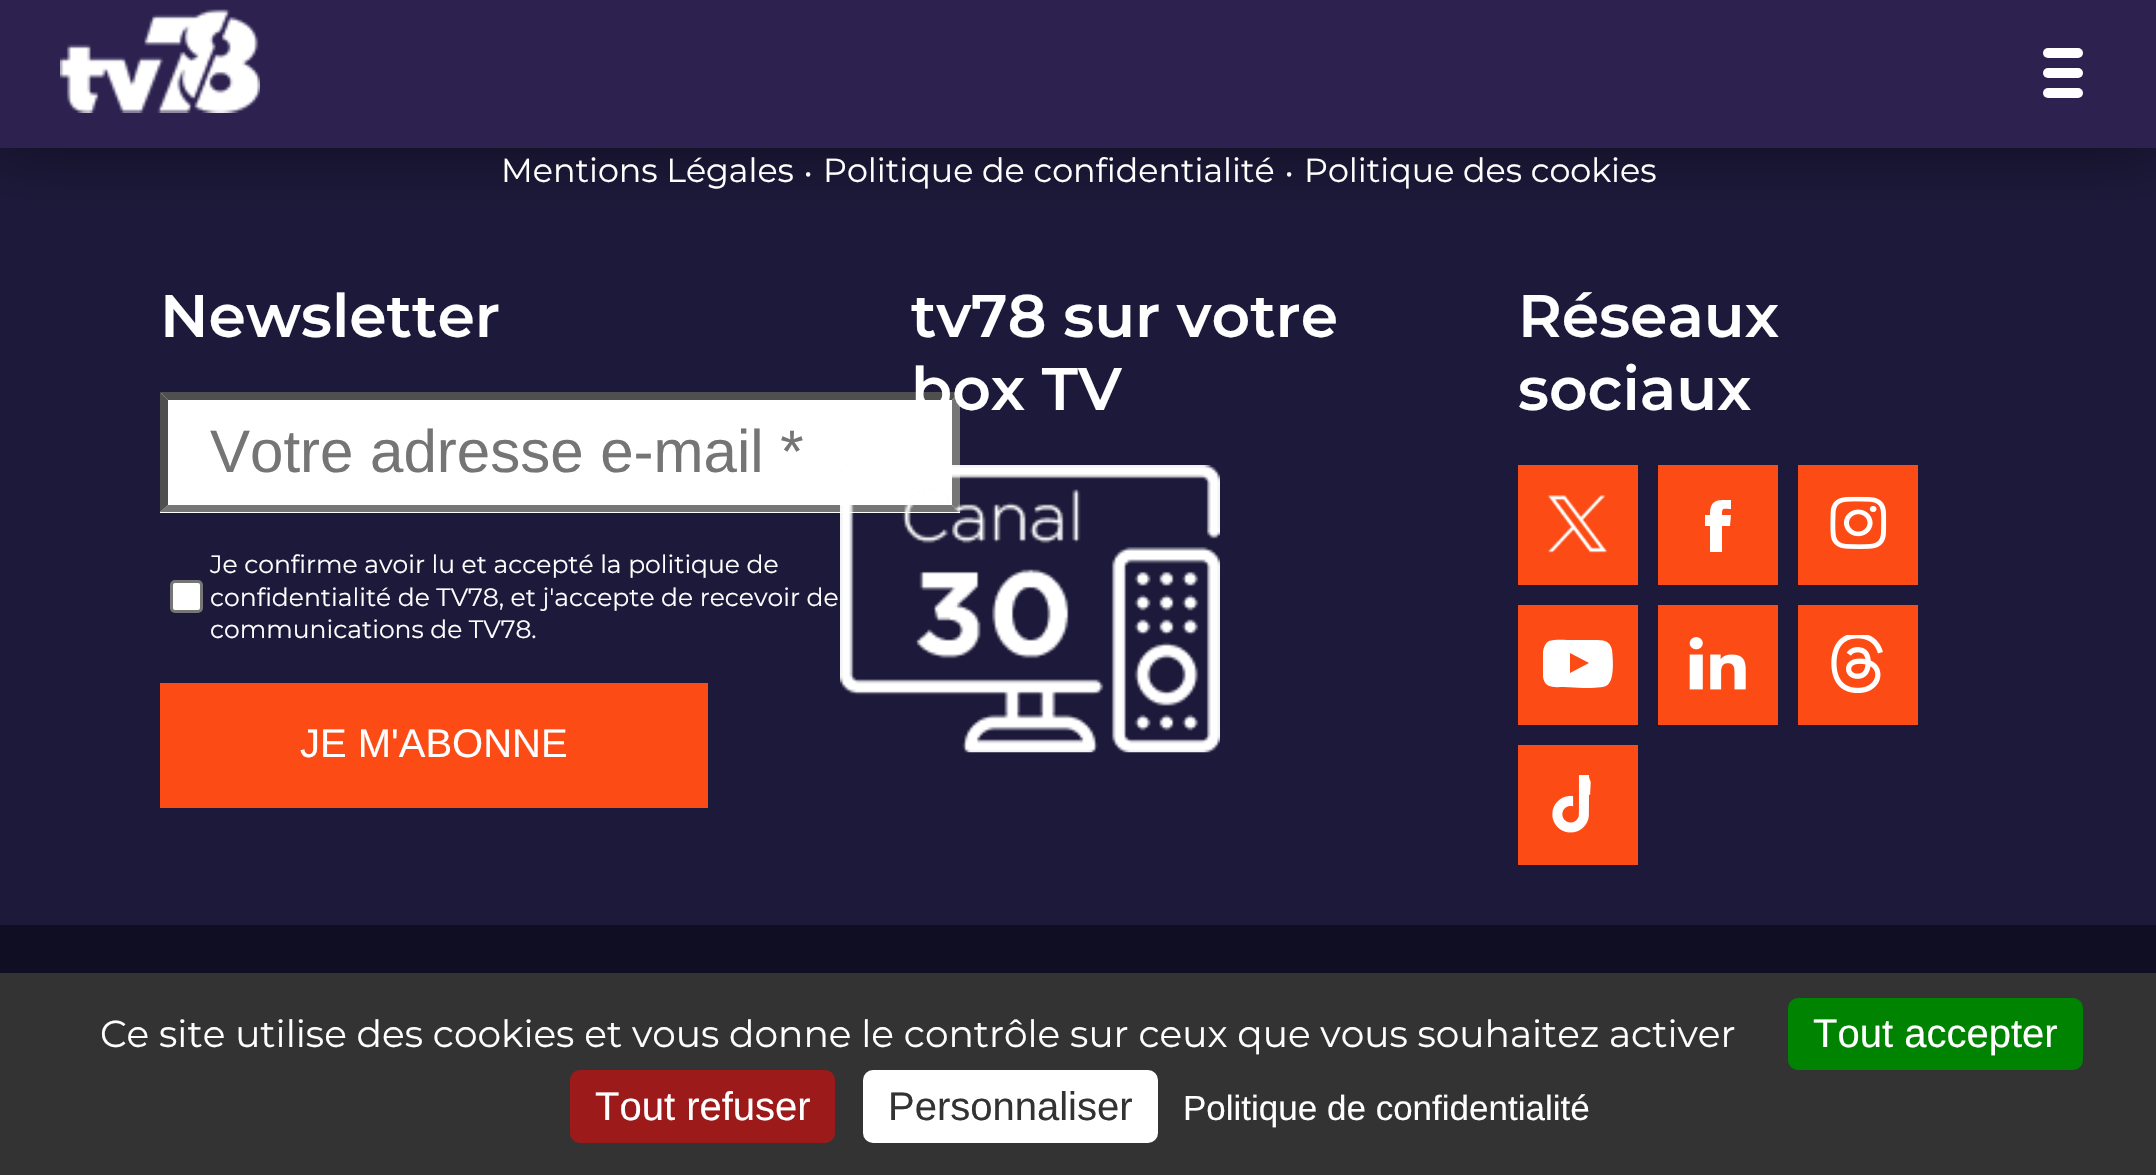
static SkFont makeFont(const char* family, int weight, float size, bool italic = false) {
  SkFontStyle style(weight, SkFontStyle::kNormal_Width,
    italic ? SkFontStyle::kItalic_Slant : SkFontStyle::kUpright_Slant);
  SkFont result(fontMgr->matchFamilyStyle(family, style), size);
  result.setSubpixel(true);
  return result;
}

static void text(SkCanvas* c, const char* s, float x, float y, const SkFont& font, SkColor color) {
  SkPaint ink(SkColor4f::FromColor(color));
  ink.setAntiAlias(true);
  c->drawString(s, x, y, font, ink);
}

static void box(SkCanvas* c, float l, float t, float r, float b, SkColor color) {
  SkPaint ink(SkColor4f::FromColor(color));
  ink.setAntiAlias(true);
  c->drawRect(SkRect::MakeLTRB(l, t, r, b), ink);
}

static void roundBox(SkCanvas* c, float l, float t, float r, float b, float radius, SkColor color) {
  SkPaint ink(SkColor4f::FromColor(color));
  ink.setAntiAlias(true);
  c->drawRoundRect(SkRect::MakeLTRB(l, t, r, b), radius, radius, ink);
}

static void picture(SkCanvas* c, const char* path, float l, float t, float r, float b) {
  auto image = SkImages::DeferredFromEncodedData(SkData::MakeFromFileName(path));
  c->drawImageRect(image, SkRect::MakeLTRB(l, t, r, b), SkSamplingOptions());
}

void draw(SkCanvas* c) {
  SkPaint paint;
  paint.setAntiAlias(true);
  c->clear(0xff1c193a);
  paint.setColor(0x80000000);
  paint.setMaskFilter(SkMaskFilter::MakeBlur(kNormal_SkBlurStyle, 31));
  c->drawRect(SkRect::MakeLTRB(0, -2, 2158, 148), paint);
  paint.setMaskFilter(nullptr);
  box(c, 0, 0, 2156, 148, 0xff2d2150);
  picture(c, "img_01.png", 60, 9, 260, 113);
  roundBox(c, 2043, 48, 2083, 58, 5, 0xffffffff);
  roundBox(c, 2043, 68, 2083, 78, 5, 0xffffffff);
  roundBox(c, 2043, 88, 2083, 98, 5, 0xffffffff);
  SkFont face1 = makeFont("Montserrat", 400, 33.3f);
  text(c, "Mentions Légales", 501, 182, face1, 0xffffffff);
  SkFont face2 = makeFont("Montserrat", 400, 28);
  text(c, "•", 804, 182, face2, 0xffffffff);
  text(c, "Politique de confidentialité", 823, 182, face1, 0xffffffff);
  text(c, "•", 1285, 182, face2, 0xffffffff);
  text(c, "Politique des cookies", 1304, 182, face1, 0xffffffff);
  SkFont face3 = makeFont("Montserrat", 600, 60);
  text(c, "Newsletter", 160, 337, face3, 0xffffffff);
  box(c, 160, 393, 960, 513, 0xffffffff);
  paint.setColor(0xff4f4f4f);
  c->drawPath(SkPathBuilder().moveTo(160, 392).lineTo(960, 392).lineTo(952, 400).lineTo(168, 400).close().detach(), paint);
  paint.setColor(0xff767676);
  c->drawPath(SkPathBuilder().moveTo(960, 392).lineTo(960, 512).lineTo(952, 505).lineTo(952, 400).close().detach(), paint);
  c->drawPath(SkPathBuilder().moveTo(960, 512).lineTo(160, 512).lineTo(168, 505).lineTo(952, 505).close().detach(), paint);
  paint.setColor(0xff4f4f4f);
  c->drawPath(SkPathBuilder().moveTo(160, 512).lineTo(160, 392).lineTo(168, 400).lineTo(168, 505).close().detach(), paint);
  SkFont face4 = makeFont("Liberation Sans", 400, 60);
  text(c, "Votre adresse e-mail *", 210, 472, face4, 0xff757575);
  SkFont face5 = makeFont("Montserrat", 400, 25);
  text(c, "Je confirme avoir lu et accepté la politique de", 210, 573, face5, 0xffffffff);
  paint.setColor(0xffffffff);
  c->drawRoundRect(SkRect::MakeLTRB(171.5f, 581.5f, 201.5f, 611.5f), 3.5f, 3.5f, paint);
  paint.setStyle(SkPaint::kStroke_Style);
  paint.setStrokeWidth(3);
  paint.setColor(0xff767676);
  c->drawRoundRect(SkRect::MakeLTRB(171.5f, 581.5f, 201.5f, 611.5f), 3.5f, 3.5f, paint);
  text(c, "confidentialité de TV78, et j'accepte de recevoir de", 210, 606, face5, 0xffffffff);
  text(c, "communications de TV78.", 210, 638, face5, 0xffffffff);
  box(c, 160, 683, 708, 808, 0xfffc4b15);
  SkFont face6 = makeFont("Liberation Sans", 400, 40);
  text(c, "JE M'ABONNE", 300, 757, face6, 0xffffffff);
  text(c, "tv78 sur votre", 911, 337, face3, 0xffffffff);
  text(c, "box TV", 911, 410, face3, 0xffffffff);
  picture(c, "img_02.png", 840, 465, 1220, 753);
  text(c, "Réseaux", 1518, 337, face3, 0xffffffff);
  text(c, "sociaux", 1518, 410, face3, 0xffffffff);
  box(c, 1518, 465, 1638, 585, 0xfffc4b15);
  picture(c, "img_03.png", 1548, 495, 1607, 553);
  box(c, 1658, 465, 1778, 585, 0xfffc4b15);
  paint.setStyle(SkPaint::kFill_Style);
  paint.setColor(0xffffffff);
  c->drawPath(SkPathBuilder(SkPathFillType::kEvenOdd).moveTo(1722, 515).cubicTo(1722, 507, 1723, 509, 1731, 509).lineTo(1731, 500).cubicTo(1717, 500, 1710, 499, 1710, 515).lineTo(1705, 515).lineTo(1705, 526).lineTo(1710, 526).lineTo(1710, 552).lineTo(1722, 552).lineTo(1722, 526).lineTo(1730, 526).lineTo(1731, 515).close().detach(), paint);
  box(c, 1798, 465, 1918, 585, 0xfffc4b15);
  picture(c, "img_04.png", 1830, 496, 1887, 549);
  box(c, 1518, 605, 1638, 725, 0xfffc4b15);
  c->save();
  c->clipRect(SkRect::MakeLTRB(1543, 635, 1613, 693));
  c->drawPath(SkPathBuilder(SkPathFillType::kEvenOdd).moveTo(1589, 663).lineTo(1570, 673).lineTo(1570, 653).close().moveTo(1612, 650).cubicTo(1610, 640, 1603, 640, 1594, 640).lineTo(1572, 640).cubicTo(1567, 640, 1554, 639, 1549, 641).cubicTo(1540, 645, 1542, 670, 1543, 677).cubicTo(1545, 689, 1555, 687, 1564, 687).lineTo(1583, 688).cubicTo(1588, 688, 1601, 688, 1606, 686).cubicTo(1615, 682, 1613, 658, 1612, 650).close().detach(), paint);
  c->restore();
  box(c, 1658, 605, 1778, 725, 0xfffc4b15);
  picture(c, "img_05.png", 1689, 637, 1746, 690);
  box(c, 1798, 605, 1918, 725, 0xfffc4b15);
  picture(c, "img_06.png", 1831, 635, 1883, 693);
  box(c, 1518, 745, 1638, 865, 0xfffc4b15);
  picture(c, "img_07.png", 1552, 775, 1591, 833);
  box(c, 0, 925, 2156, 973, 0xff100e22);
  box(c, 0, 973, 2156, 1175, 0xff333333);
  SkFont face7 = makeFont("Montserrat", 400, 37.5f);
  text(c, "Ce site utilise des cookies et vous donne le contrôle sur ceux que vous souhaitez activer", 100, 1047, face7, 0xffffffff);
  roundBox(c, 1788, 998, 2083, 1070, 10, 0xff008300);
  text(c, "Tout accepter", 1813, 1047, face6, 0xffffffff);
  roundBox(c, 570, 1070, 835, 1143, 10, 0xff9c1a1a);
  text(c, "Tout refuser", 595, 1120, face6, 0xffffffff);
  roundBox(c, 863, 1070, 1158, 1143, 10, 0xffffffff);
  text(c, "Personnaliser", 888, 1120, face6, 0xff333333);
  SkFont face8 = makeFont("Liberation Sans", 400, 35);
  text(c, "Politique de confidentialité", 1183, 1120, face8, 0xffffffff);
}
